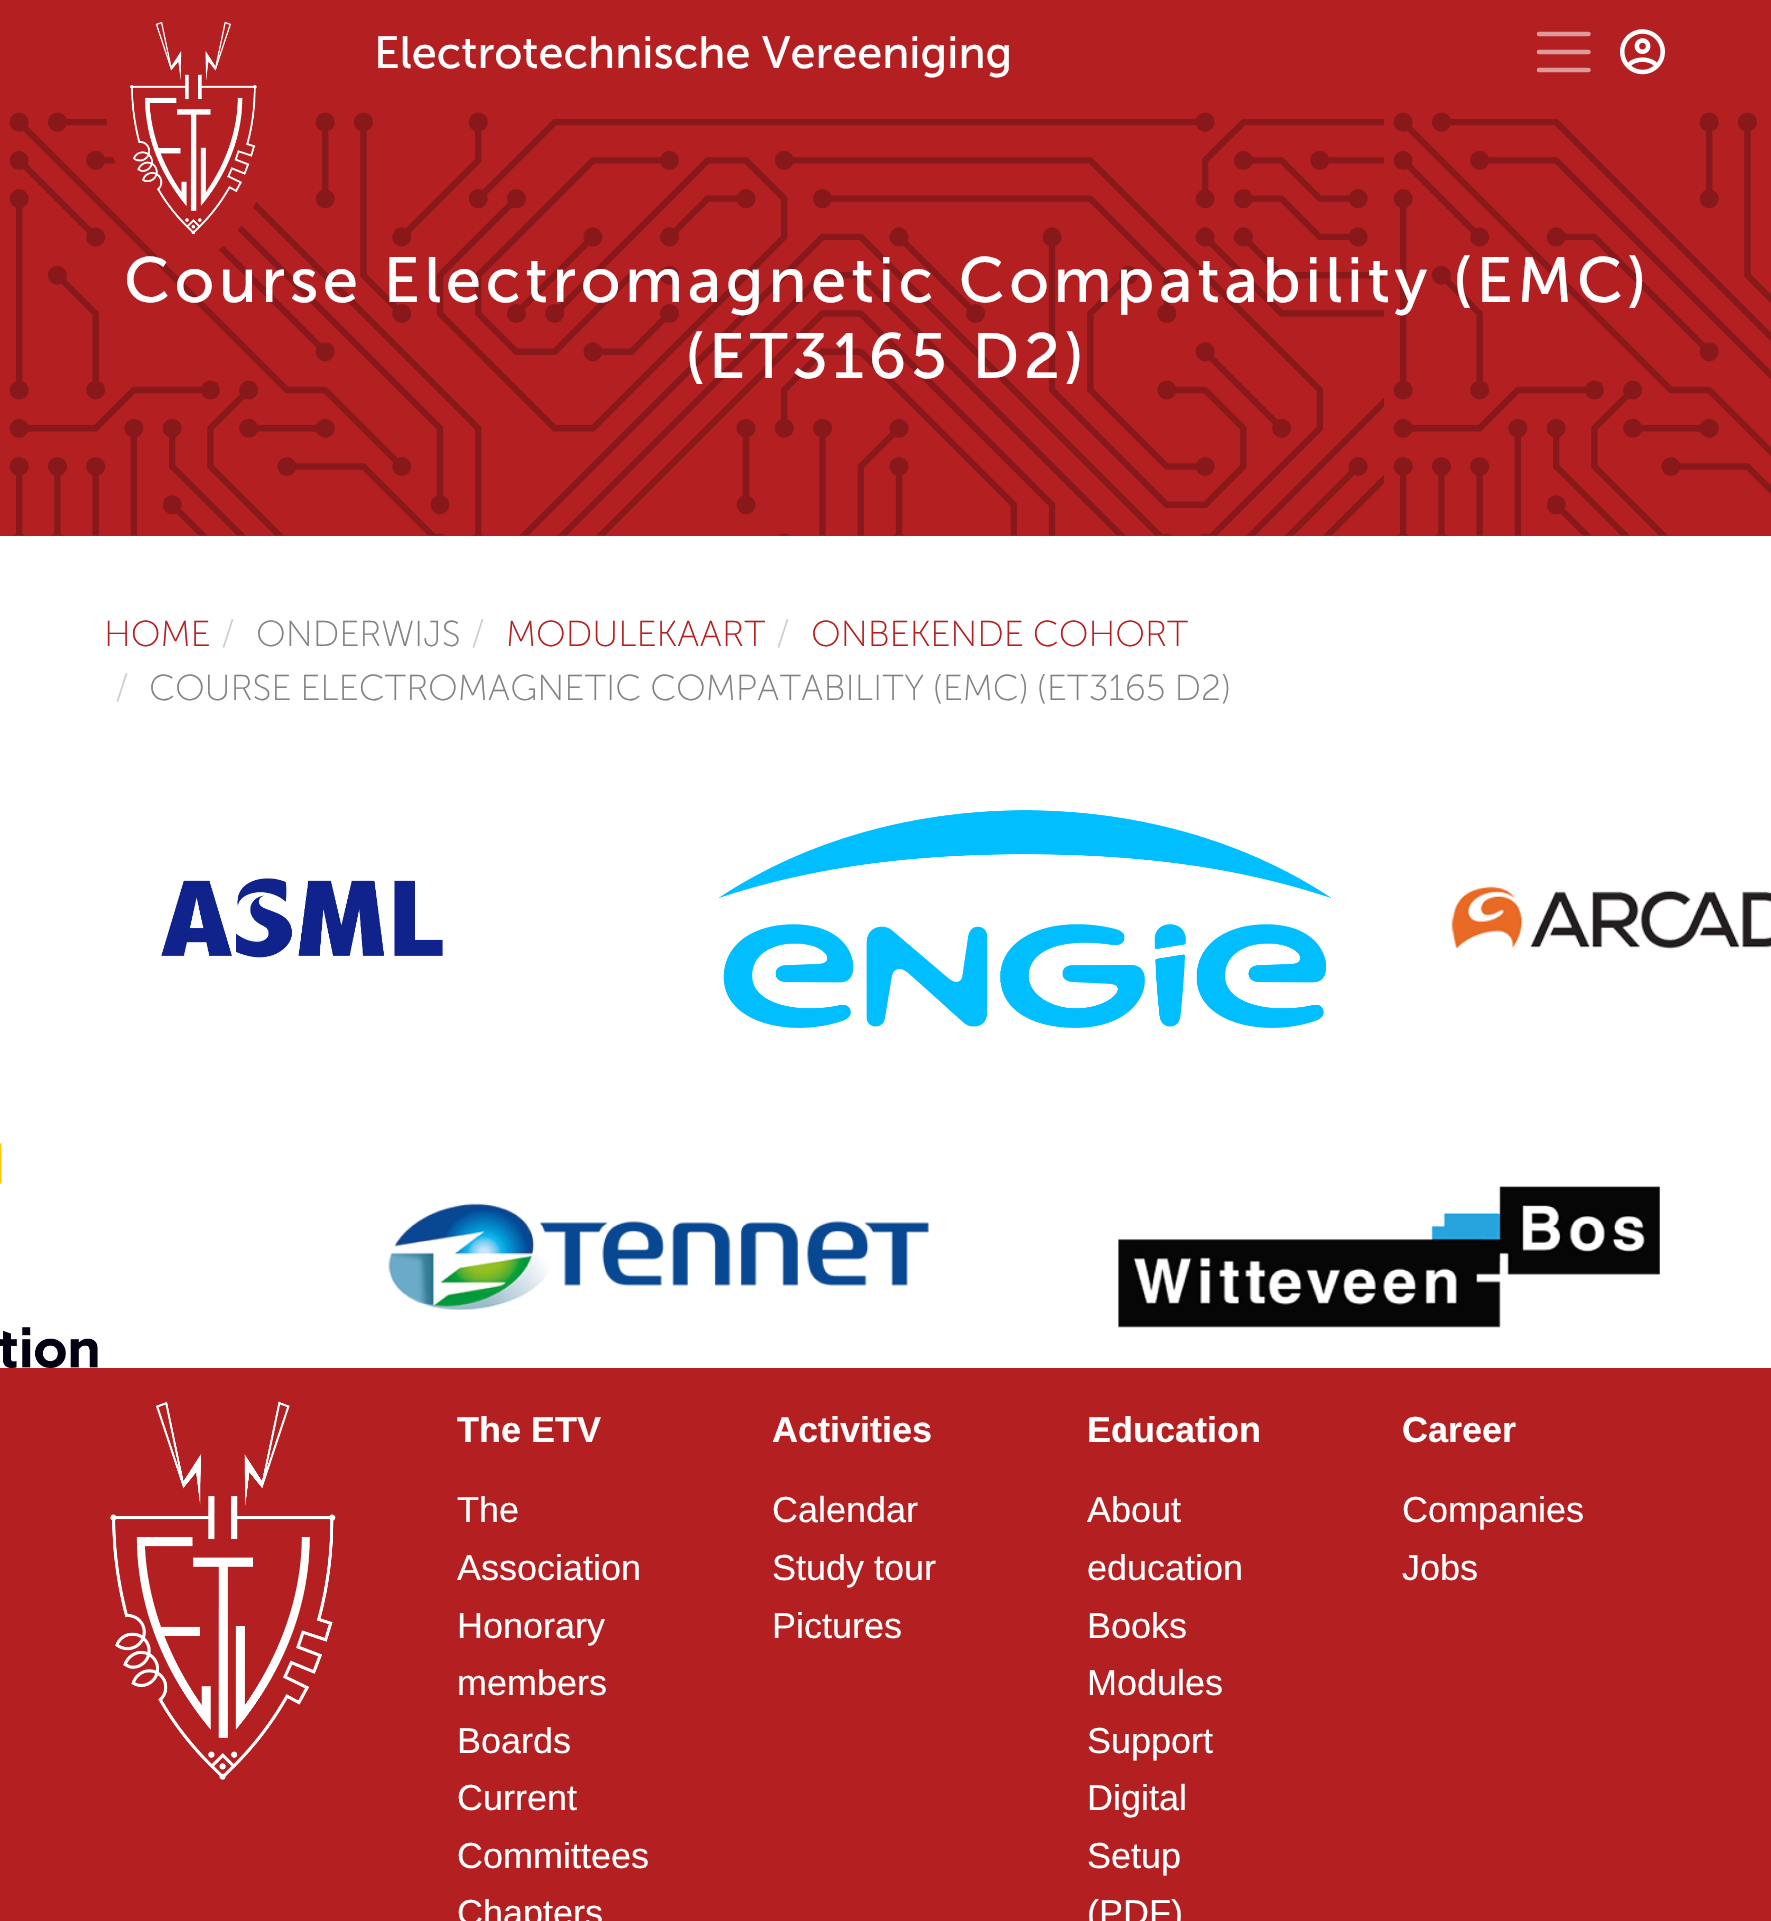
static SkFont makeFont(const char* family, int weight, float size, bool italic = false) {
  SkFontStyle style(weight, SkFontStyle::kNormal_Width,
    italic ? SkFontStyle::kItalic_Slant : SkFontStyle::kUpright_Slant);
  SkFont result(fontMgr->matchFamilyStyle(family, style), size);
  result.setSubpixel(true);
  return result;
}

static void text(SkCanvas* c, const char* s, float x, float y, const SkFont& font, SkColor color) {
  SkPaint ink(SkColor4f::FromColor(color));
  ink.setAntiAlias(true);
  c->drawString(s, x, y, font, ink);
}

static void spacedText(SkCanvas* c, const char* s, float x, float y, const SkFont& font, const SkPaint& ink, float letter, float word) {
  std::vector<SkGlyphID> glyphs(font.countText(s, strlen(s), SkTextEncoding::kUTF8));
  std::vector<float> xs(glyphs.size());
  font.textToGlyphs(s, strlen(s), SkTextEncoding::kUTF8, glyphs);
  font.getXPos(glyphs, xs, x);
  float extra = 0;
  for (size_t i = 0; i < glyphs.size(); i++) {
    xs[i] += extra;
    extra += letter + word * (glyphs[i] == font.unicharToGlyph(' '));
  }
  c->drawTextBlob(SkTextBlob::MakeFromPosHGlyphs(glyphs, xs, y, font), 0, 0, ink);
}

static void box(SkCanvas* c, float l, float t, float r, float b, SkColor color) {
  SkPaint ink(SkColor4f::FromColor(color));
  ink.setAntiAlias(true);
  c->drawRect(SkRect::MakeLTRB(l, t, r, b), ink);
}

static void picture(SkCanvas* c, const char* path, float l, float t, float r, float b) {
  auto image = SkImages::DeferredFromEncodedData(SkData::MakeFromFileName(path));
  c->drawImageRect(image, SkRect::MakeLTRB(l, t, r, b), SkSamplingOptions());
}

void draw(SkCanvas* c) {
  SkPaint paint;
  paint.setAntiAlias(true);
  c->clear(0xffffffff);
  box(c, 0, 0, 1771, 536, 0xffb41f21);
  picture(c, "img_03.png", 9, 104, 1771, 536);
  picture(c, "img_01.png", 106, 21, 257, 250);
  SkFont face1 = makeFont("Museo Sans", 400, 45);
  text(c, "Electrotechnische Vereeniging", 374, 68, face1, 0xffffffff);
  paint.setStyle(SkPaint::kStroke_Style);
  paint.setStrokeWidth(4.5f);
  paint.setStrokeCap(SkPaint::kRound_Cap);
  paint.setColor(0xffdd9a9b);
  c->drawPath(SkPathBuilder().moveTo(1539, 34).lineTo(1588.5f, 34).moveTo(1539, 52).lineTo(1588.5f, 52).moveTo(1539, 70).lineTo(1588.5f, 70).detach(), paint);
  picture(c, "img_02.png", 1620, 29, 1665, 75);
  SkFont face2 = makeFont("Museo Sans", 400, 63.7f);
  paint.setStyle(SkPaint::kFill_Style);
  paint.setColor(0xffffffff);
  spacedText(c, "Course Electromagnetic Compatability (EMC)", 124, 302, face2, paint, 4.5f, 0);
  spacedText(c, "(ET3165 D2)", 685, 378, face2, paint, 4.5f, 0);
  SkFont face3 = makeFont("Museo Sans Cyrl", 200, 36);
  text(c, "HOME", 104, 646, face3, 0xffb41f21);
  text(c, "/", 221, 646, face3, 0xffcccccc);
  text(c, "ONDERWIJS", 256, 646, face3, 0xff808285);
  text(c, "/", 471, 646, face3, 0xffcccccc);
  text(c, "MODULEKAART", 506, 646, face3, 0xffb41f21);
  text(c, "/", 776, 646, face3, 0xffcccccc);
  text(c, "ONBEKENDE COHORT", 811, 646, face3, 0xffb41f21);
  text(c, "/", 115, 700, face3, 0xffcccccc);
  text(c, "COURSE ELECTROMAGNETIC COMPATABILITY (EMC) (ET3165 D2)", 149, 700, face3, 0xff808285);
  picture(c, "img_04.png", 161, 878, 443, 958);
  picture(c, "img_05.png", 718, 810, 1331, 1028);
  picture(c, "img_06.png", 1451, 886, 1771, 949);
  picture(c, "img_07.png", 0, 1143, 98, 1368);
  picture(c, "img_08.png", 388, 1203, 929, 1310);
  picture(c, "img_09.png", 1118, 1186, 1660, 1328);
  box(c, 0, 1368, 1771, 1921, 0xffb41f21);
  picture(c, "img_10.png", 110, 1401, 336, 1780);
  SkFont face4 = makeFont("Liberation Sans", 700, 36);
  text(c, "The ETV", 457, 1442, face4, 0xffffffff);
  SkFont face5 = makeFont("Liberation Sans", 400, 36);
  text(c, "The", 457, 1522, face5, 0xffffffff);
  text(c, "Association", 457, 1580, face5, 0xffffffff);
  text(c, "Honorary", 457, 1638, face5, 0xffffffff);
  text(c, "members", 457, 1695, face5, 0xffffffff);
  text(c, "Boards", 457, 1753, face5, 0xffffffff);
  text(c, "Current", 457, 1810, face5, 0xffffffff);
  text(c, "Committees", 457, 1868, face5, 0xffffffff);
  text(c, "Chapters", 457, 1925, face5, 0xffffffff);
  text(c, "Activities", 772, 1442, face4, 0xffffffff);
  text(c, "Calendar", 772, 1522, face5, 0xffffffff);
  text(c, "Study tour", 772, 1580, face5, 0xffffffff);
  text(c, "Pictures", 772, 1638, face5, 0xffffffff);
  text(c, "Education", 1087, 1442, face4, 0xffffffff);
  text(c, "About", 1087, 1522, face5, 0xffffffff);
  text(c, "education", 1087, 1580, face5, 0xffffffff);
  text(c, "Books", 1087, 1638, face5, 0xffffffff);
  text(c, "Modules", 1087, 1695, face5, 0xffffffff);
  text(c, "Support", 1087, 1753, face5, 0xffffffff);
  text(c, "Digital", 1087, 1810, face5, 0xffffffff);
  text(c, "Setup", 1087, 1868, face5, 0xffffffff);
  text(c, "(PDF)", 1087, 1925, face5, 0xffffffff);
  text(c, "Career", 1402, 1442, face4, 0xffffffff);
  text(c, "Companies", 1402, 1522, face5, 0xffffffff);
  text(c, "Jobs", 1402, 1580, face5, 0xffffffff);
}
